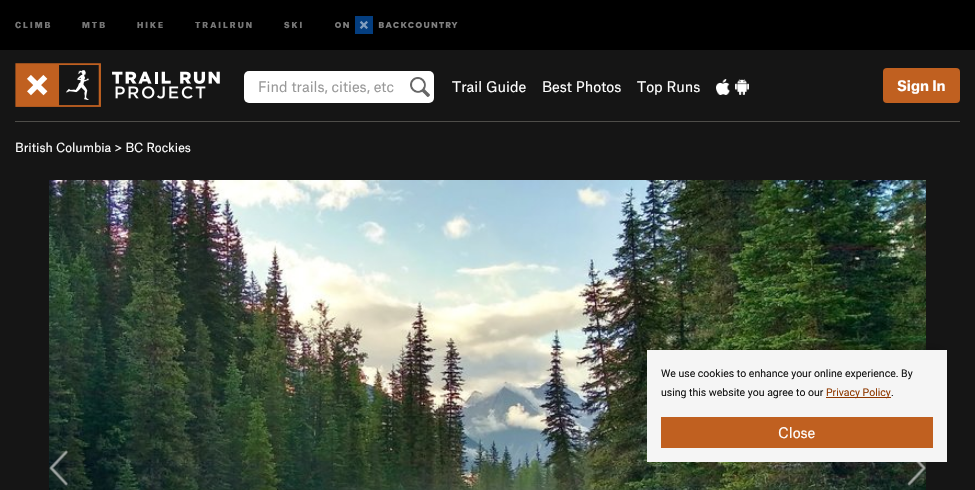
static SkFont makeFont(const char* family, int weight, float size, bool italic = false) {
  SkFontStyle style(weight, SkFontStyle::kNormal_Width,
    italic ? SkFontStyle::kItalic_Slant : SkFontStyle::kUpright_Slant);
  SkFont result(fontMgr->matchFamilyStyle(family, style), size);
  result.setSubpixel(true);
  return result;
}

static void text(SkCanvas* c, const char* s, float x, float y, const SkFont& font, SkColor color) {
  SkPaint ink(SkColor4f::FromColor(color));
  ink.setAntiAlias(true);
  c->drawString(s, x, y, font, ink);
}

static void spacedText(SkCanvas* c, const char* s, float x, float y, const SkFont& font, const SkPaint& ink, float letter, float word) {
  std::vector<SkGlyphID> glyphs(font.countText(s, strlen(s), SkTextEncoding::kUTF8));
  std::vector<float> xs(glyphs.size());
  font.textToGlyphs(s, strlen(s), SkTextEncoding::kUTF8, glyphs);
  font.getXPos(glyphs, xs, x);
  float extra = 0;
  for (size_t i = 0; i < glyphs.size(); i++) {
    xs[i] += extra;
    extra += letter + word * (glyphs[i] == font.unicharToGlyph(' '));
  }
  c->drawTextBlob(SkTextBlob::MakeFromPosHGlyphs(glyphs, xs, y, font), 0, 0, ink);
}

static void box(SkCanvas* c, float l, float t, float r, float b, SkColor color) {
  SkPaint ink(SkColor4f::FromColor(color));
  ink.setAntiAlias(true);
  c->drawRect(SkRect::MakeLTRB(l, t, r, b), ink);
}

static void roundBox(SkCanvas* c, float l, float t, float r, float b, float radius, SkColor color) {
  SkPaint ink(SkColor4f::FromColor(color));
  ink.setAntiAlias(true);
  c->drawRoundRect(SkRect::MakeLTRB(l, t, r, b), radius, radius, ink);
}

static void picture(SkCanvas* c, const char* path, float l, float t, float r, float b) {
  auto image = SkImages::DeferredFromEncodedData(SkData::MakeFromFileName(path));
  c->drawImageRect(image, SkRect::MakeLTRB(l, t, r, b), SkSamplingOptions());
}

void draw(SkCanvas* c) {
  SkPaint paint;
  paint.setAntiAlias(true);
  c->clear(0xff151515);
  box(c, 0, 0, 975, 50, 0xff000000);
  SkFont face1 = makeFont("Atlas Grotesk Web", 900, 8);
  paint.setColor(0xff777777);
  spacedText(c, "CLIMB", 15, 28, face1, paint, 2, 0);
  spacedText(c, "MTB", 82, 28, face1, paint, 2, 0);
  spacedText(c, "HIKE", 137, 28, face1, paint, 2, 0);
  spacedText(c, "TRAILRUN", 195, 28, face1, paint, 2, 0);
  spacedText(c, "SKI", 284, 28, face1, paint, 2, 0);
  picture(c, "img_01.png", 335, 16, 458, 34);
  picture(c, "img_02.png", 15, 63, 220, 107);
  roundBox(c, 244, 71, 434, 103, 5, 0xffffffff);
  picture(c, "img_03.png", 410, 77, 430, 97);
  SkFont face2 = makeFont("Atlas Grotesk Web", 400, 14);
  text(c, "Find trails, cities, etc", 258, 92, face2, 0xff999999);
  text(c, "Trail Guide", 452, 92, face2, 0xffffffff);
  text(c, "Best Photos", 542, 92, face2, 0xffffffff);
  text(c, "Top Runs", 637, 92, face2, 0xffffffff);
  picture(c, "img_04.png", 716, 79, 730, 95);
  picture(c, "img_05.png", 735, 79, 749, 95);
  roundBox(c, 883, 68, 960, 103, 4, 0xffc06020);
  SkFont face3 = makeFont("Atlas Grotesk Web", 700, 14);
  text(c, "Sign In", 897, 91, face3, 0xffffffff);
  box(c, 15, 121, 960, 122, 0xff4e4d49);
  SkFont face4 = makeFont("Atlas Grotesk Web", 400, 12);
  text(c, "British Columbia > BC Rockies", 15, 152, face4, 0xffffffff);
  picture(c, "img_06.png", 49, 180, 926, 490);
  picture(c, "img_07.png", 49, 450, 68, 486);
  picture(c, "img_08.png", 907, 462, 926, 486);
  paint.setColor(0x40000000);
  paint.setMaskFilter(SkMaskFilter::MakeBlur(kNormal_SkBlurStyle, 5));
  c->drawRect(SkRect::MakeLTRB(652, 350, 942, 452), paint);
  paint.setMaskFilter(nullptr);
  box(c, 647, 350, 947, 462, 0xfff5f5f5);
  SkFont face5 = makeFont("Roboto", 400, 10.5f);
  text(c, "We use cookies to enhance your online experience. By", 661, 377, face5, 0xff151515);
  text(c, "using this website you agree to our", 661, 396, face5, 0xff151515);
  box(c, 826, 397, 891, 398, 0xff8f3900);
  text(c, "Privacy Policy", 826, 396, face5, 0xff8f3900);
  text(c, ".", 891, 396, face5, 0xff151515);
  box(c, 661, 417, 933, 448, 0xffc06020);
  text(c, "Close", 778, 438, face2, 0xffffffff);
}
